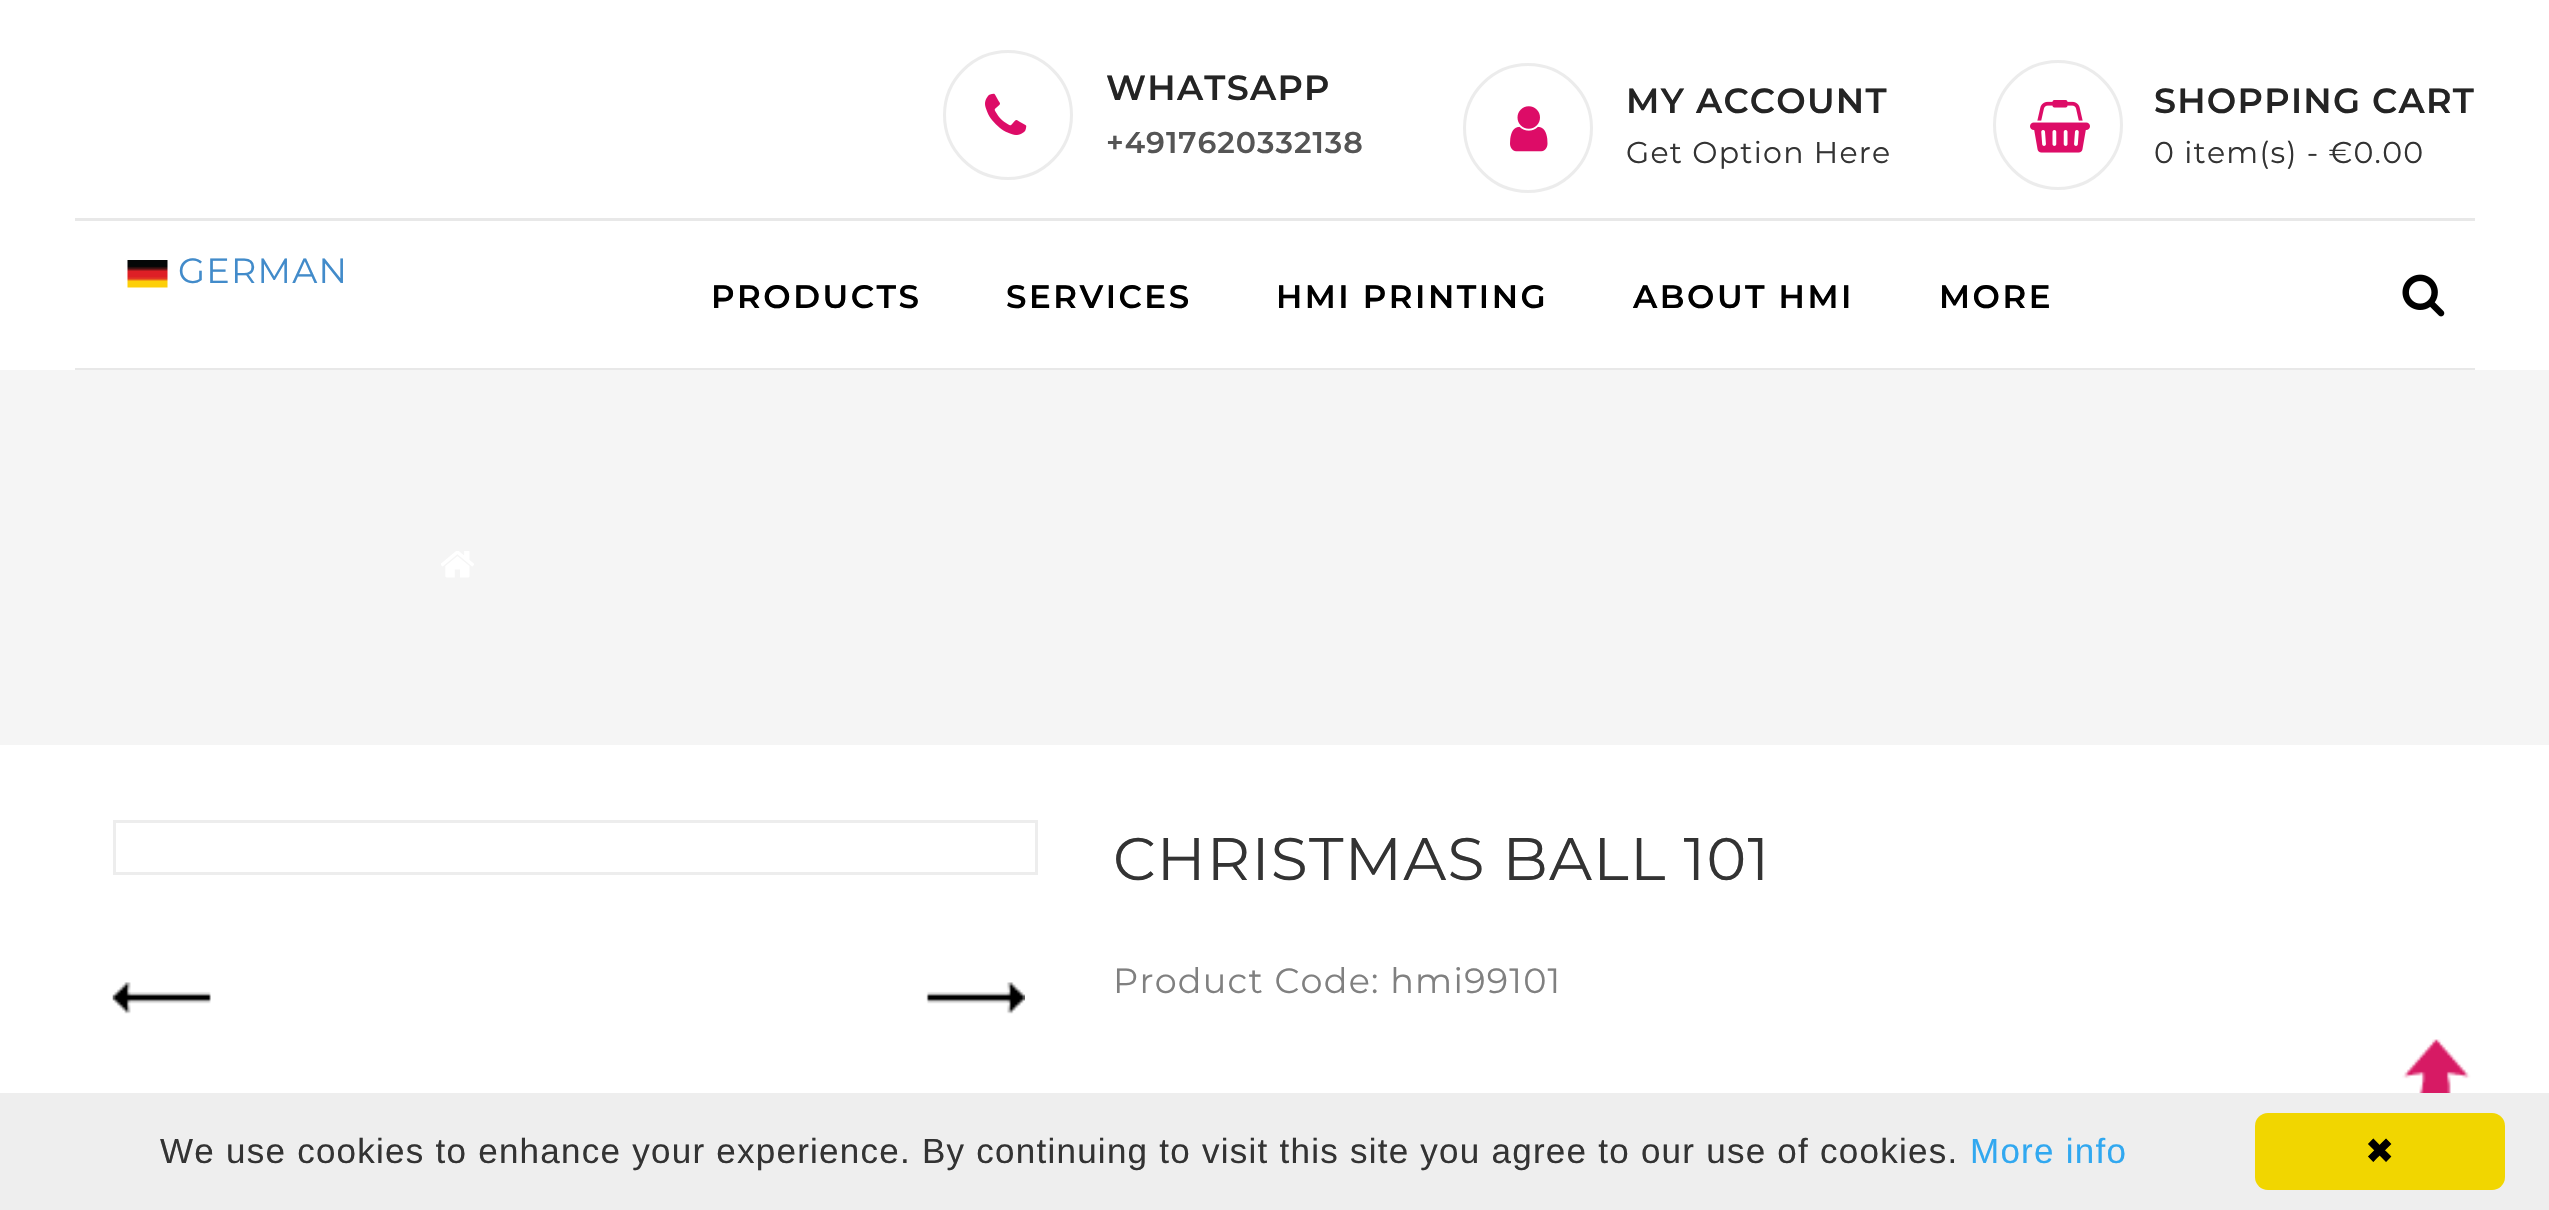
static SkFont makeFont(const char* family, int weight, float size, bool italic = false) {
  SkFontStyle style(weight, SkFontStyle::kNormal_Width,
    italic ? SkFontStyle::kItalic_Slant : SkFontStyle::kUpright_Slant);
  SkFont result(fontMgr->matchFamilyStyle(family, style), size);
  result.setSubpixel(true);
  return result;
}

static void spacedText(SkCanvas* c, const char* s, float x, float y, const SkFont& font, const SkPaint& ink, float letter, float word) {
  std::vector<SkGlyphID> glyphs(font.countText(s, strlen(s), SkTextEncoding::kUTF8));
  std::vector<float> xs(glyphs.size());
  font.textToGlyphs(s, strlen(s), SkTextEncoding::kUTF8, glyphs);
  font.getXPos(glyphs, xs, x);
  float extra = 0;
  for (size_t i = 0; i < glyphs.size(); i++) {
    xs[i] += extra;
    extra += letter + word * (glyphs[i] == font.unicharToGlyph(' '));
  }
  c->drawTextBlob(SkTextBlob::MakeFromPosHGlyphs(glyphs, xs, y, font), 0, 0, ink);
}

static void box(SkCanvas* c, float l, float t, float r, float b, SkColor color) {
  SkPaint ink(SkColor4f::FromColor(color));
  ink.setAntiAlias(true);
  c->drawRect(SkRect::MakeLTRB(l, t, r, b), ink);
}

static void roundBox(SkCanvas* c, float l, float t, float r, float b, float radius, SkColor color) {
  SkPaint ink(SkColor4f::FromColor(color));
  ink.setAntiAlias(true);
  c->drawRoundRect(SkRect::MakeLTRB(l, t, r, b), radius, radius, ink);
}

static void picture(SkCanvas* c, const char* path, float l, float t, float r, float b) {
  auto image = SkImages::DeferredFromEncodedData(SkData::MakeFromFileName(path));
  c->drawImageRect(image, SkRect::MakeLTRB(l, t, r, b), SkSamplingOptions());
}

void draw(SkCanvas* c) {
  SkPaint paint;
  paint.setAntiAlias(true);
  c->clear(0xffffffff);
  paint.setStyle(SkPaint::kStroke_Style);
  paint.setStrokeWidth(3);
  paint.setColor(0xffececec);
  c->drawCircle(1008, 115, 63.5f, paint);
  picture(c, "img_01.png", 985, 93, 1027, 135);
  SkFont face1 = makeFont("Montserrat", 600, 35);
  paint.setStyle(SkPaint::kFill_Style);
  paint.setColor(0xff242424);
  spacedText(c, "WHATSAPP", 1106, 100, face1, paint, 1.25f, 0);
  SkFont face2 = makeFont("Montserrat", 600, 30);
  paint.setColor(0xff555555);
  spacedText(c, "+4917620332138", 1106, 153, face2, paint, 1, 0);
  paint.setStyle(SkPaint::kStroke_Style);
  paint.setColor(0xffececec);
  c->drawCircle(1528, 128, 63.5f, paint);
  picture(c, "img_02.png", 1510, 106, 1548, 152);
  paint.setStyle(SkPaint::kFill_Style);
  paint.setColor(0xff242424);
  spacedText(c, "MY ACCOUNT", 1626, 113, face1, paint, 1.25f, 0);
  SkFont face3 = makeFont("Montserrat", 400, 30);
  paint.setColor(0xff333333);
  spacedText(c, "Get Option Here", 1626, 163, face3, paint, 1.25f, 0);
  paint.setStyle(SkPaint::kStroke_Style);
  paint.setColor(0xffececec);
  c->drawCircle(2058, 125, 63.5f, paint);
  picture(c, "img_03.png", 2030, 100, 2090, 153);
  paint.setStyle(SkPaint::kFill_Style);
  paint.setColor(0xff242424);
  spacedText(c, "SHOPPING CART", 2154, 113, face1, paint, 1.25f, 0);
  paint.setColor(0xff333333);
  spacedText(c, "0 item(s) - €0.00", 2154, 163, face3, paint, 1.25f, 0);
  picture(c, "img_04.png", 2402, 274, 2445, 317);
  picture(c, "img_05.png", 127, 260, 168, 288);
  SkFont face4 = makeFont("Montserrat", 400, 35);
  paint.setColor(0xff428bca);
  spacedText(c, "GERMAN", 178, 283, face4, paint, 1.25f, 0);
  box(c, 75, 218, 2475, 221, 0xffe8e8e8);
  box(c, 75, 368, 2475, 370, 0xffe8e8e8);
  SkFont face5 = makeFont("Montserrat", 600, 32.5f);
  paint.setColor(0xff000000);
  spacedText(c, "PRODUCTS", 711, 308, face5, paint, 2.5f, 0);
  spacedText(c, "SERVICES", 1006, 308, face5, paint, 2.5f, 0);
  spacedText(c, "HMI PRINTING", 1276, 308, face5, paint, 2.5f, 0);
  spacedText(c, "ABOUT HMI", 1633, 308, face5, paint, 2.5f, 0);
  spacedText(c, "MORE", 1939, 308, face5, paint, 2.5f, 0);
  box(c, 0, 370, 2549, 745, 0xfff5f5f5);
  picture(c, "img_06.png", 441, 551, 474, 578);
  paint.setStyle(SkPaint::kStroke_Style);
  paint.setColor(0xffededed);
  c->drawRect(SkRect::MakeLTRB(114.5f, 821.5f, 1036.5f, 873.5f), paint);
  picture(c, "img_07.png", 112, 982, 211, 1014);
  picture(c, "img_08.png", 926, 982, 1025, 1014);
  SkFont face6 = makeFont("Montserrat", 400, 60);
  paint.setStyle(SkPaint::kFill_Style);
  paint.setColor(0xff333333);
  spacedText(c, "CHRISTMAS BALL 101", 1113, 880, face6, paint, 1.25f, 0);
  paint.setColor(0xff808080);
  spacedText(c, "Product Code: hmi99101", 1113, 993, face4, paint, 1.25f, 0);
  picture(c, "img_09.png", 2394, 1039, 2478, 1093);
  box(c, 0, 1093, 2549, 1210, 0xffeeeeee);
  SkFont face7 = makeFont("Liberation Sans", 400, 35);
  paint.setColor(0xff333333);
  spacedText(c, "We use cookies to enhance your experience. By continuing to visit this site you agree to our use of cookies.", 160, 1163, face7, paint, 1.25f, 0);
  paint.setColor(0xff31a8f0);
  spacedText(c, "More info", 1970, 1163, face7, paint, 1.25f, 0);
  roundBox(c, 2255, 1113, 2505, 1190, 13, 0xfff1d600);
  SkFont face8 = makeFont("DejaVu Sans", 400, 35);
  paint.setColor(0xff000000);
  spacedText(c, "✖", 2365, 1163, face8, paint, 1.25f, 0);
}
